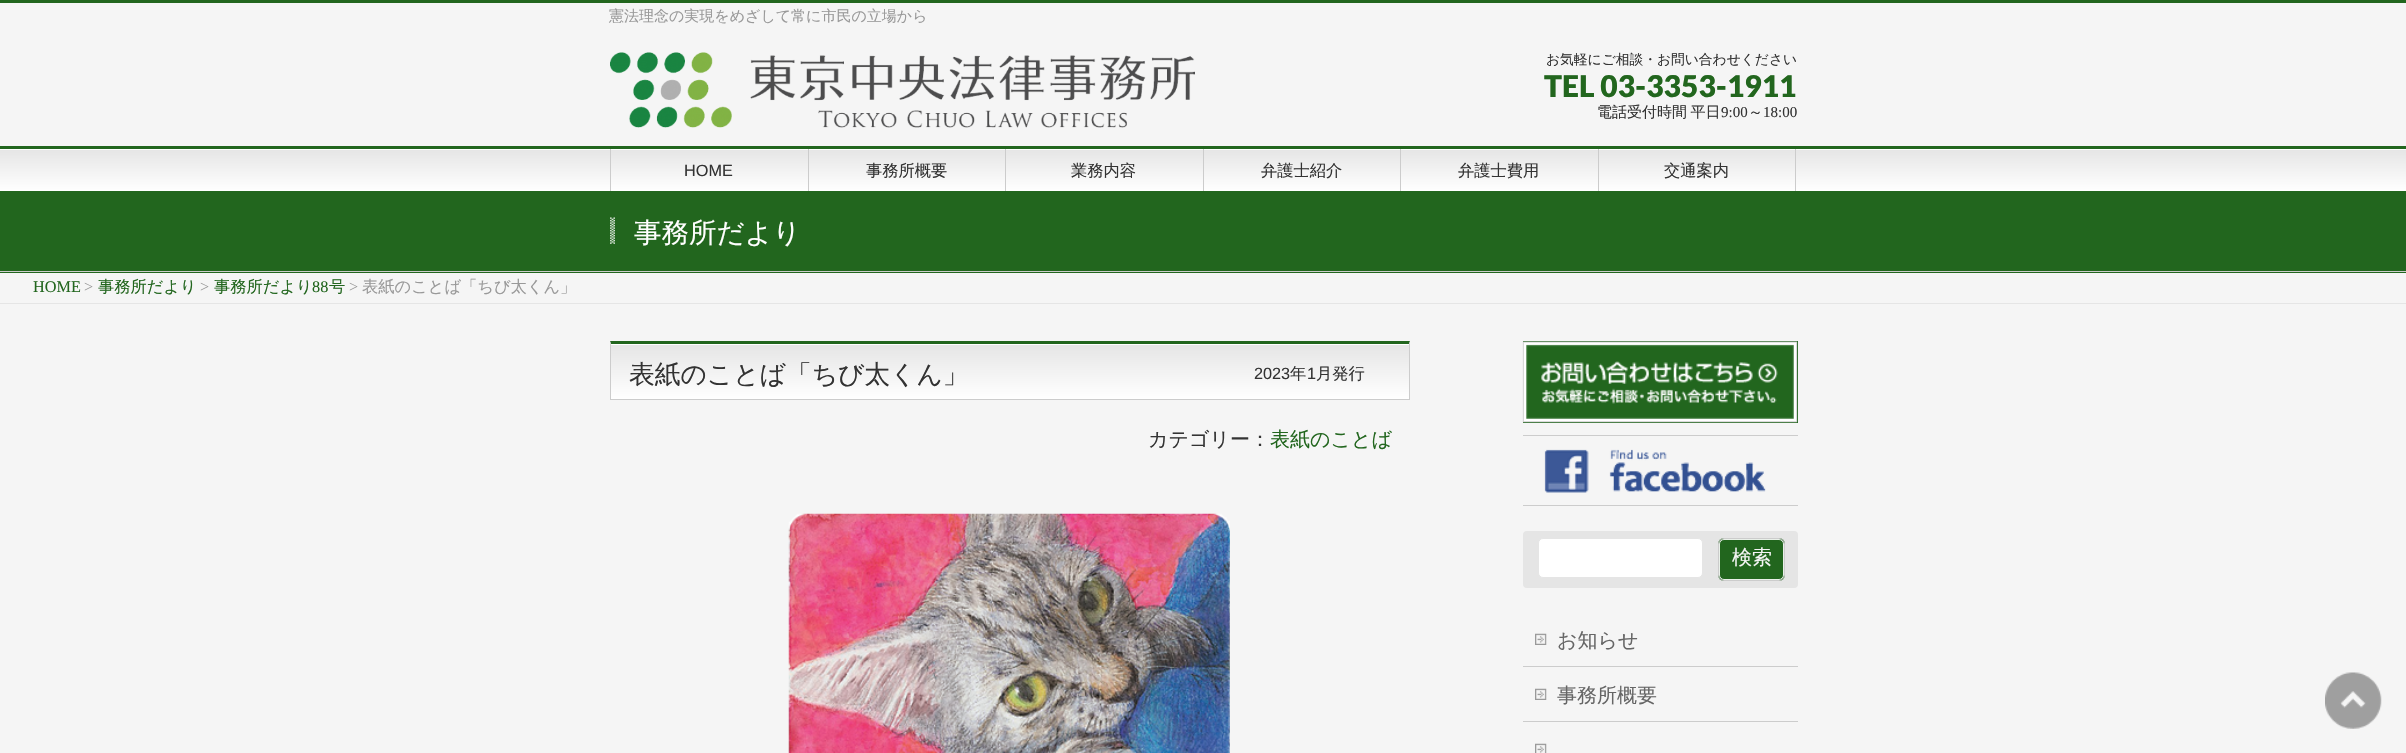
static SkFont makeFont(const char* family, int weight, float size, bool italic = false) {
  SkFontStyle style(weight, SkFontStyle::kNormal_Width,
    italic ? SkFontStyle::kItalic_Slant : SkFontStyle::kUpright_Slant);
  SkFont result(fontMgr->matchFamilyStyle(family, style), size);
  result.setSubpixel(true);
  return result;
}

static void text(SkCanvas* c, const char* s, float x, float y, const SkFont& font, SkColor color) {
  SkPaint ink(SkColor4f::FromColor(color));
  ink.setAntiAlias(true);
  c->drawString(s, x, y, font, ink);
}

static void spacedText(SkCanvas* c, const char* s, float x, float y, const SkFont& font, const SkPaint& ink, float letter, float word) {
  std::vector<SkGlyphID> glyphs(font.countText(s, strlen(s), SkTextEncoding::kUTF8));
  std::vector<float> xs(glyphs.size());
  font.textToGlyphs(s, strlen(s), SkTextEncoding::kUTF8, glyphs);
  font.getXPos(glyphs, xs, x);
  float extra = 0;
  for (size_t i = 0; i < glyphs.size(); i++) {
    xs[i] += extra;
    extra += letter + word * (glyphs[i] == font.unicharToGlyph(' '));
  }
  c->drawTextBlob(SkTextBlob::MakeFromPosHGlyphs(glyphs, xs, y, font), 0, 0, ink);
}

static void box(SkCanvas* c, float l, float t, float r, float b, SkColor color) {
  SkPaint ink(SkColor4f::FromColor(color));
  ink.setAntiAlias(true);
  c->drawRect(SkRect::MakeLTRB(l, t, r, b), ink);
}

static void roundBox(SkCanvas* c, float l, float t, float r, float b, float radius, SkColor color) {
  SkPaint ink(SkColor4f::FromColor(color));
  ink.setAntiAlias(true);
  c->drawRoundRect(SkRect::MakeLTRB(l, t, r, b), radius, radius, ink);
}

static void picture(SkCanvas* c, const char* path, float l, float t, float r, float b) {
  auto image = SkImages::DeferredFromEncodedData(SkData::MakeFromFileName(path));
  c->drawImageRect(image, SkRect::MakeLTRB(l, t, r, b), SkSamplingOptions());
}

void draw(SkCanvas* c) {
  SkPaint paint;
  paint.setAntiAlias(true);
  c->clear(0xfff5f5f5);
  box(c, 0, 0, 2406, 3, 0xff22661e);
  SkFont face1 = makeFont("WenQuanYi Zen Hei", 500, 15);
  text(c, "憲法理念の実現をめざして常に市民の立場から", 609, 21, face1, 0xff999999);
  picture(c, "img_01.png", 610, 52, 1195, 128);
  SkFont face2 = makeFont("WenQuanYi Zen Hei", 500, 13.75f);
  text(c, "お気軽にご相談・お問い合わせください", 1546, 64, face2, 0xff333333);
  SkFont face3 = makeFont("Lato", 900, 30);
  text(c, "TEL 03-3353-1911", 1544, 97, face3, 0xff22661e);
  paint.setColor(0xff333333);
  spacedText(c, "電話受付時間 平日", 1597, 117, face1, paint, 0, -1);
  SkFont face4 = makeFont("Liberation Serif", 400, 15);
  text(c, "9:00", 1721, 117, face4, 0xff333333);
  text(c, "～", 1748, 117, face1, 0xff333333);
  text(c, "18:00", 1763, 117, face4, 0xff333333);
  {
    const SkColor colors[] = {0xffe5e5e5, 0xffffffff};
    const float stops[] = {0, 1};
    const SkPoint ends[] = {{1203, 149}, {1203, 191}};
    paint.setShader(SkGradientShader::MakeLinear(ends, colors, stops, 2, SkTileMode::kClamp));
    paint.setAlpha(255);
  }
  c->drawRect(SkRect::MakeLTRB(0, 150, 2406, 191), paint);
  box(c, 0, 149, 2406, 150, 0xffffffff);
  box(c, 0, 146, 2406, 149, 0xff22661e);
  box(c, 610, 149, 611, 191, 0xffcccccc);
  box(c, 808, 149, 809, 191, 0xffcccccc);
  SkFont face5 = makeFont("Liberation Sans", 400, 16.25f);
  text(c, "HOME", 684, 176, face5, 0xff333333);
  box(c, 1005, 149, 1006, 191, 0xffcccccc);
  SkFont face6 = makeFont("WenQuanYi Zen Hei", 500, 16.25f);
  text(c, "事務所概要", 866, 176, face6, 0xff333333);
  box(c, 1203, 149, 1204, 191, 0xffcccccc);
  text(c, "業務内容", 1071, 176, face6, 0xff333333);
  box(c, 1400, 149, 1401, 191, 0xffcccccc);
  text(c, "弁護士紹介", 1261, 176, face6, 0xff333333);
  box(c, 1598, 149, 1599, 191, 0xffcccccc);
  text(c, "弁護士費用", 1458, 176, face6, 0xff333333);
  box(c, 1795, 149, 1796, 191, 0xffcccccc);
  text(c, "交通案内", 1664, 176, face6, 0xff333333);
  box(c, 0, 191, 2406, 273, 0xff22661e);
  box(c, 0, 271, 2406, 272, 0xffcccccc);
  picture(c, "img_02.png", 610, 217, 615, 244);
  SkFont face7 = makeFont("WenQuanYi Zen Hei", 500, 27.5f);
  text(c, "事務所だより", 634, 242, face7, 0xffffffff);
  box(c, 0, 303, 2406, 304, 0xffe5e5e5);
  SkFont face8 = makeFont("Liberation Serif", 400, 16.25f);
  text(c, "HOME", 33, 292, face8, 0xff22661e);
  text(c, ">", 84, 292, face8, 0xff999999);
  text(c, "事務所だより", 98, 292, face6, 0xff22661e);
  text(c, ">", 200, 292, face8, 0xff999999);
  text(c, "事務所だより", 214, 292, face6, 0xff22661e);
  text(c, "88", 312, 292, face8, 0xff22661e);
  text(c, "号", 329, 292, face6, 0xff22661e);
  text(c, ">", 349, 292, face8, 0xff999999);
  text(c, "表紙のことば「ちび太くん」", 362, 292, face6, 0xff999999);
  {
    const SkColor colors[] = {0xffe5e5e5, 0xffffffff};
    const float stops[] = {0, 1};
    const SkPoint ends[] = {{611, 344}, {611, 399}};
    paint.setShader(SkGradientShader::MakeLinear(ends, colors, stops, 2, SkTileMode::kClamp));
    paint.setAlpha(255);
  }
  c->drawRect(SkRect::MakeLTRB(611, 345, 1409, 399), paint);
  box(c, 611, 344, 1409, 345, 0xffffffff);
  paint.setShader(nullptr);
  paint.setColor(0xff22661e);
  c->drawPath(SkPathBuilder().moveTo(610, 341).lineTo(1410, 341).lineTo(1409, 344).lineTo(611, 344).close().detach(), paint);
  paint.setColor(0xffcccccc);
  c->drawPath(SkPathBuilder().moveTo(1410, 341).lineTo(1410, 400).lineTo(1409, 399).lineTo(1409, 344).close().detach(), paint);
  box(c, 610, 399, 1410, 400, 0xffcccccc);
  c->drawPath(SkPathBuilder().moveTo(610, 400).lineTo(610, 341).lineTo(611, 344).lineTo(611, 399).close().detach(), paint);
  SkFont face9 = makeFont("WenQuanYi Zen Hei", 500, 25.75f);
  text(c, "表紙のことば「ちび太くん」", 629, 383, face9, 0xff333333);
  text(c, "2023", 1254, 379, face5, 0xff333333);
  text(c, "年", 1290, 379, face6, 0xff333333);
  text(c, "1", 1307, 379, face5, 0xff333333);
  text(c, "月発行", 1316, 379, face6, 0xff333333);
  SkFont face10 = makeFont("WenQuanYi Zen Hei", 500, 20);
  text(c, "カテゴリー：", 1148, 446, face10, 0xff333333);
  text(c, "表紙のことば", 1270, 446, face10, 0xff22661e);
  picture(c, "img_03.png", 788, 513, 1230, 753);
  box(c, 1523, 341, 1798, 423, 0xff22661e);
  picture(c, "img_04.png", 1522, 341, 1798, 423);
  box(c, 1523, 435, 1798, 436, 0xffcccccc);
  box(c, 1523, 505, 1798, 506, 0xffcccccc);
  picture(c, "img_05.png", 1544, 449, 1766, 493);
  roundBox(c, 1523, 531, 1798, 588, 4, 0xffe5e5e5);
  paint.setColor(0xffffffff);
  c->drawRoundRect(SkRect::MakeLTRB(1538.5f, 538.5f, 1702.5f, 577.5f), 4.5f, 4.5f, paint);
  paint.setStyle(SkPaint::kStroke_Style);
  paint.setStrokeWidth(1);
  paint.setColor(0xffe5e5e5);
  c->drawRoundRect(SkRect::MakeLTRB(1538.5f, 538.5f, 1702.5f, 577.5f), 4.5f, 4.5f, paint);
  roundBox(c, 1718, 538, 1785, 581, 6, 0xff22661e);
  paint.setColor(0xffe9f0e9);
  c->drawRoundRect(SkRect::MakeLTRB(1719.5f, 539.5f, 1783.5f, 579.5f), 4.5f, 4.5f, paint);
  paint.setColor(0xffcccccc);
  c->drawRoundRect(SkRect::MakeLTRB(1718.5f, 538.5f, 1784.5f, 580.5f), 5.5f, 5.5f, paint);
  text(c, "検索", 1732, 564, face10, 0xfff5f5f5);
  box(c, 1523, 666, 1798, 667, 0xffcccccc);
  picture(c, "img_06.png", 1535, 633, 1547, 645);
  text(c, "お知らせ", 1557, 647, face10, 0xff666666);
  box(c, 1523, 721, 1798, 722, 0xffcccccc);
  picture(c, "img_06.png", 1535, 688, 1547, 700);
  text(c, "事務所概要", 1557, 702, face10, 0xff666666);
  picture(c, "img_07.png", 1535, 743, 1547, 753);
  picture(c, "img_08.png", 2325, 672, 2382, 729);
}
